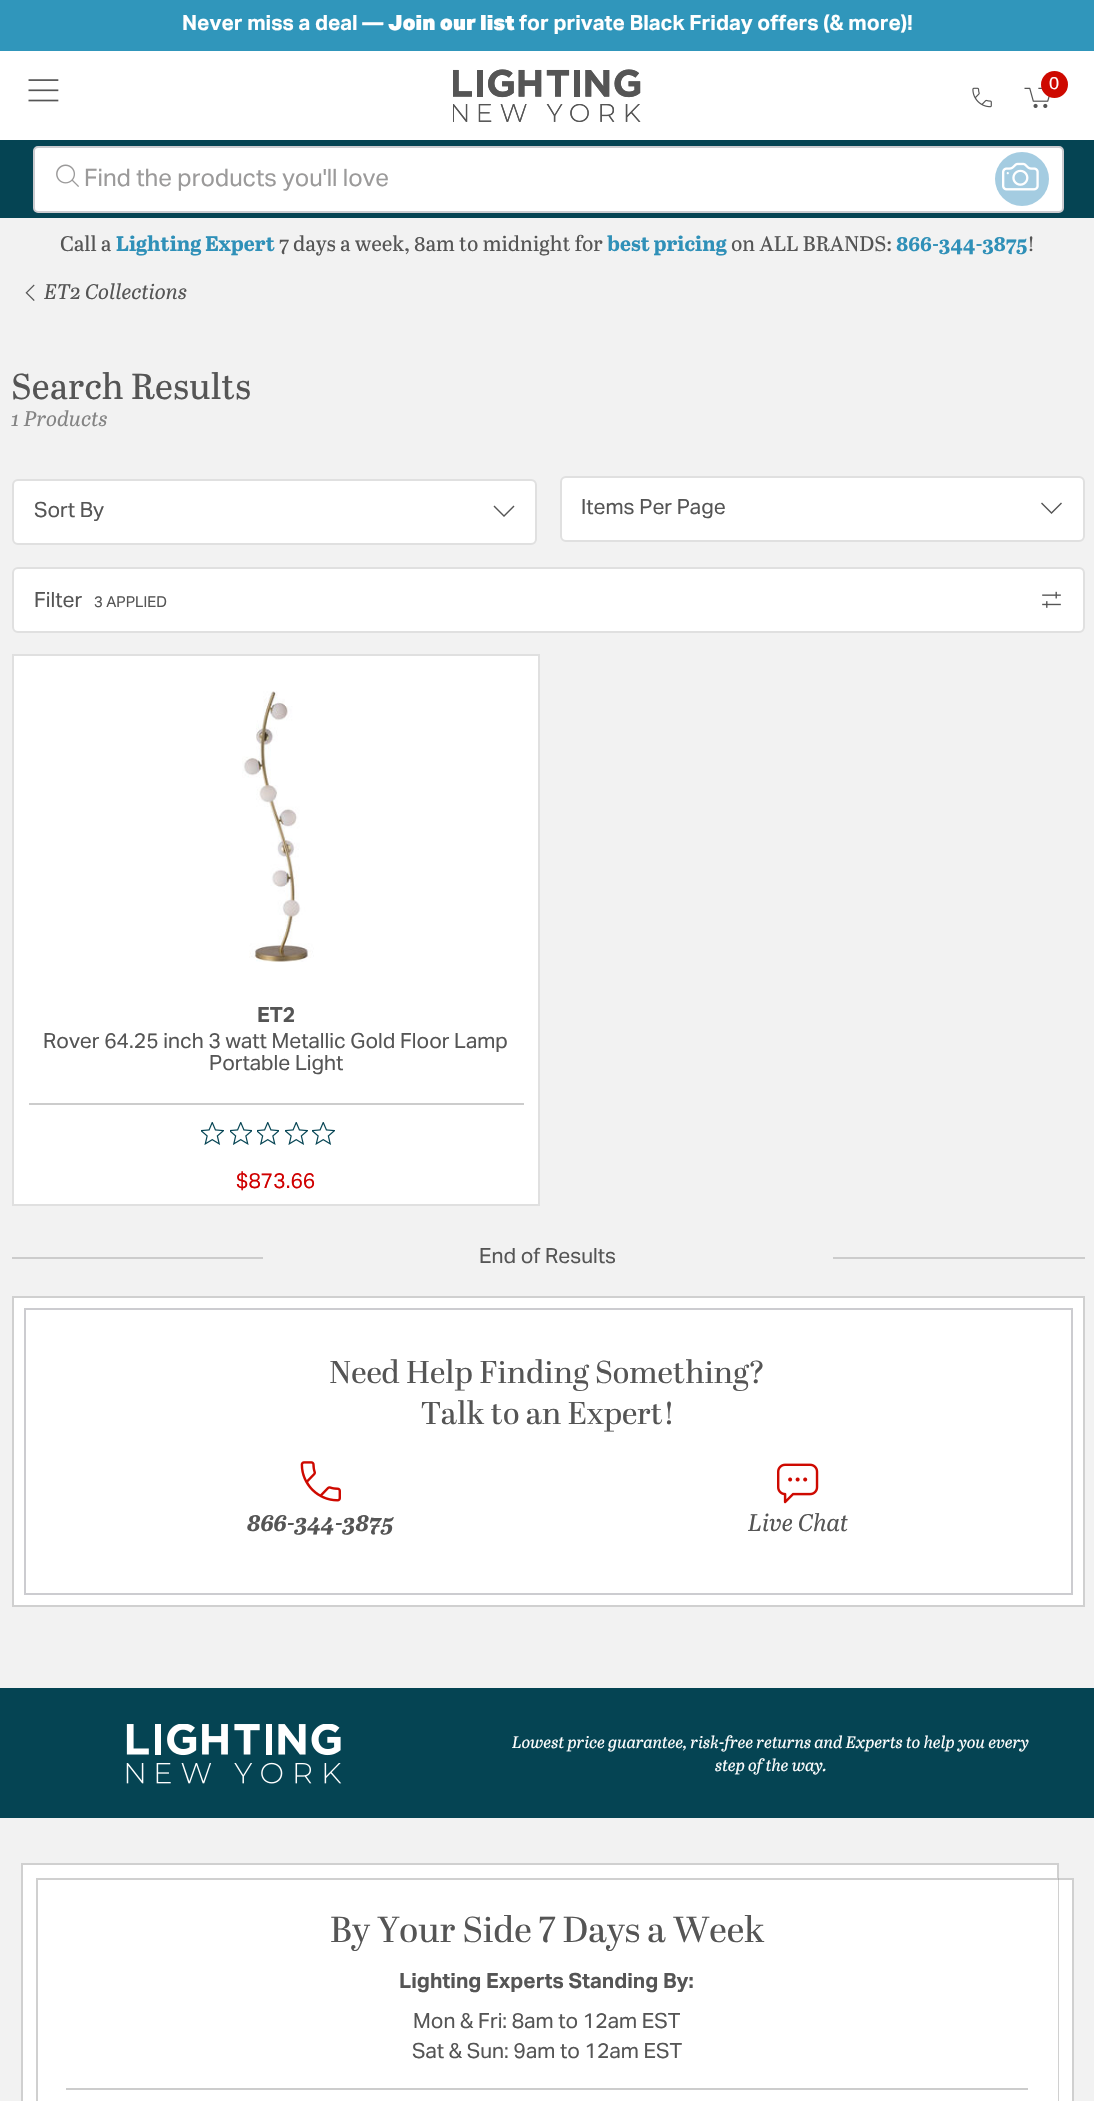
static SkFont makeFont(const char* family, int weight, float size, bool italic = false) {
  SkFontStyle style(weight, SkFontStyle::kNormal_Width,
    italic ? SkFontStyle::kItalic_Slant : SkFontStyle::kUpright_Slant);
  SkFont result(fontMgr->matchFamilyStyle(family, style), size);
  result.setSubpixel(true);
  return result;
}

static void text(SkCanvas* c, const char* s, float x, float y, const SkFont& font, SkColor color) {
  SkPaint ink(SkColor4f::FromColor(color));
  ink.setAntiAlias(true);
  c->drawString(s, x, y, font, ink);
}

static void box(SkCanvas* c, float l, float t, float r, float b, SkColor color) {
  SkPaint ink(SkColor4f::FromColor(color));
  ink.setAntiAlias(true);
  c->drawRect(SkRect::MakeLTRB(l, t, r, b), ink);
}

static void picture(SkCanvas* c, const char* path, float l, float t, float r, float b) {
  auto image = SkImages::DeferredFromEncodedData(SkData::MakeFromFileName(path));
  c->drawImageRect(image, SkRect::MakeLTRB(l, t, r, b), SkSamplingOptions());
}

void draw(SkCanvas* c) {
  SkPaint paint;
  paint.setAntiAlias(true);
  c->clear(0xffffffff);
  box(c, 0, 0, 1094, 51, 0xff3096bb);
  SkFont face1 = makeFont("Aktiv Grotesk", 700, 21);
  text(c, "Never miss a deal —", 182, 30, face1, 0xffffffff);
  SkFont face2 = makeFont("Aktiv Grotesk", 900, 21);
  text(c, "Join our list", 388, 30, face2, 0xffffffff);
  text(c, "for private Black Friday offers (& more)!", 519, 30, face1, 0xffffffff);
  picture(c, "img_01.png", 28, 79, 59, 102);
  picture(c, "img_02.png", 453, 69, 641, 122);
  picture(c, "img_03.png", 453, 69, 641, 122);
  picture(c, "img_04.png", 1024, 87, 1050, 108);
  paint.setColor(0xffce0900);
  c->drawCircle(1054.5f, 84.5f, 13.5f, paint);
  SkFont face3 = makeFont("Aktiv Grotesk", 400, 17);
  text(c, "0", 1049, 89, face3, 0xffffffff);
  picture(c, "img_05.png", 972, 87, 992, 108);
  box(c, 0, 140, 1094, 218, 0xff054453);
  paint.setColor(0xffffffff);
  c->drawRoundRect(SkRect::MakeLTRB(34, 147, 1063, 212), 4, 4, paint);
  paint.setStyle(SkPaint::kStroke_Style);
  paint.setStrokeWidth(2);
  paint.setColor(0xffccccd0);
  c->drawRoundRect(SkRect::MakeLTRB(34, 147, 1063, 212), 4, 4, paint);
  picture(c, "img_06.png", 56, 164, 79, 187);
  SkFont face4 = makeFont("Aktiv Grotesk", 400, 24);
  text(c, "Find the products you'll love", 84, 186, face4, 0xff9b9a9a);
  paint.setStyle(SkPaint::kFill_Style);
  paint.setColor(0xffa4cce1);
  c->drawCircle(1022, 179, 27, paint);
  picture(c, "img_07.png", 1002, 162, 1039, 191);
  box(c, 0, 218, 1094, 1688, 0xfff2f2f2);
  SkFont face5 = makeFont("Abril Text", 400, 21);
  text(c, "Call a", 60, 251, face5, 0xff555555);
  SkFont face6 = makeFont("Abril Text", 700, 21);
  text(c, "Lighting Expert", 116, 251, face6, 0xff2f90b8);
  text(c, "7 days a week, 8am to midnight for", 279, 251, face5, 0xff555555);
  text(c, "best pricing", 607, 251, face6, 0xff2f90b8);
  text(c, "on ALL BRANDS:", 731, 251, face5, 0xff555555);
  text(c, "866-344-3875", 896, 251, face6, 0xff2f90b8);
  text(c, "!", 1027, 251, face5, 0xff555555);
  picture(c, "img_08.png", 25, 284, 35, 301);
  SkFont face7 = makeFont("Abril Text", 400, 21, true);
  text(c, "ET2 Collections", 44, 299, face7, 0xff555555);
  SkFont face8 = makeFont("Abril Text", 400, 36);
  text(c, "Search Results", 11, 399, face8, 0xff555555);
  text(c, "1 Products", 11, 426, face7, 0xff848484);
  paint.setColor(0xffffffff);
  c->drawRoundRect(SkRect::MakeLTRB(13, 480, 536, 544), 5, 5, paint);
  paint.setStyle(SkPaint::kStroke_Style);
  paint.setColor(0xffe0e0e0);
  c->drawRoundRect(SkRect::MakeLTRB(13, 480, 536, 544), 5, 5, paint);
  SkFont face9 = makeFont("Aktiv Grotesk", 400, 21);
  text(c, "Sort By", 34, 517, face9, 0xff555555);
  paint.setStyle(SkPaint::kFill_Style);
  paint.setColor(0xff555555);
  c->drawPath(SkPathBuilder().moveTo(513.5f, 505.5f).lineTo(514.5f, 506.5f).lineTo(504, 517).lineTo(493.5f, 506.5f).lineTo(494.5f, 505.5f).lineTo(504, 515).close().detach(), paint);
  paint.setColor(0xffffffff);
  c->drawRoundRect(SkRect::MakeLTRB(561, 477, 1084, 541), 5, 5, paint);
  paint.setStyle(SkPaint::kStroke_Style);
  paint.setColor(0xffe0e0e0);
  c->drawRoundRect(SkRect::MakeLTRB(561, 477, 1084, 541), 5, 5, paint);
  text(c, "Items Per Page", 581, 514, face9, 0xff555555);
  paint.setStyle(SkPaint::kFill_Style);
  paint.setColor(0xff555555);
  c->drawPath(SkPathBuilder().moveTo(1061, 502.5f).lineTo(1062, 503.5f).lineTo(1051.5f, 514).lineTo(1041, 503.5f).lineTo(1042, 502.5f).lineTo(1051.5f, 512).close().detach(), paint);
  paint.setColor(0xffffffff);
  c->drawRoundRect(SkRect::MakeLTRB(13, 568, 1084, 632), 5, 5, paint);
  paint.setStyle(SkPaint::kStroke_Style);
  paint.setColor(0xffe0e0e0);
  c->drawRoundRect(SkRect::MakeLTRB(13, 568, 1084, 632), 5, 5, paint);
  text(c, "Filter", 34, 607, face9, 0xff555555);
  SkFont face10 = makeFont("Aktiv Grotesk", 400, 15);
  text(c, "3 APPLIED", 94, 607, face10, 0xff555555);
  picture(c, "img_09.png", 1042, 591, 1061, 608);
  paint.setStyle(SkPaint::kFill_Style);
  paint.setColor(0xffffffff);
  c->drawRect(SkRect::MakeLTRB(13, 655, 539, 1205), paint);
  paint.setStyle(SkPaint::kStroke_Style);
  paint.setColor(0xffe0e0e0);
  c->drawRect(SkRect::MakeLTRB(13, 655, 539, 1205), paint);
  picture(c, "img_10.png", 242, 691, 314, 962);
  text(c, "ET2", 257, 1022, face1, 0xff555555);
  text(c, "Rover 64.25 inch 3 watt Metallic Gold Floor Lamp", 43, 1048, face9, 0xff555555);
  text(c, "Portable Light", 209, 1070, face9, 0xff555555);
  box(c, 29, 1103, 524, 1105, 0xffcccccc);
  picture(c, "img_11.png", 201, 1122, 224, 1145);
  picture(c, "img_12.png", 230, 1122, 252, 1145);
  picture(c, "img_12.png", 257, 1122, 279, 1145);
  picture(c, "img_11.png", 285, 1122, 308, 1145);
  picture(c, "img_11.png", 312, 1122, 335, 1145);
  text(c, "$873.66", 236, 1188, face9, 0xffd00000);
  box(c, 12, 1257, 263, 1259, 0xffcccccc);
  text(c, "End of Results", 479, 1263, face9, 0xff555555);
  box(c, 833, 1257, 1085, 1259, 0xffcccccc);
  paint.setStyle(SkPaint::kFill_Style);
  paint.setColor(0xffffffff);
  c->drawRect(SkRect::MakeLTRB(13, 1297, 1084, 1606), paint);
  paint.setStyle(SkPaint::kStroke_Style);
  paint.setColor(0xffd0d0d0);
  c->drawRect(SkRect::MakeLTRB(13, 1297, 1084, 1606), paint);
  paint.setColor(0xffccccd0);
  c->drawRect(SkRect::MakeLTRB(25, 1309, 1072, 1594), paint);
  SkFont face11 = makeFont("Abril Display", 400, 31.5f);
  text(c, "Need Help Finding Something?", 329, 1383, face11, 0xff555555);
  text(c, "Talk to an Expert!", 421, 1424, face11, 0xff555555);
  picture(c, "img_13.png", 300, 1461, 341, 1502);
  SkFont face12 = makeFont("Abril Text", 700, 24, true);
  text(c, "866-344-3875", 247, 1531, face12, 0xff555555);
  picture(c, "img_14.png", 777, 1463, 819, 1504);
  SkFont face13 = makeFont("Abril Text", 400, 24, true);
  text(c, "Live Chat", 748, 1531, face13, 0xff555555);
  box(c, 0, 1818, 1094, 2101, 0xfff2f2f2);
  box(c, 0, 1688, 1094, 1818, 0xff054453);
  picture(c, "img_15.png", 126, 1724, 342, 1784);
  SkFont face14 = makeFont("Abril Text", 400, 16.5f, true);
  text(c, "Lowest price guarantee, risk-free returns and Experts to help you every", 512, 1748, face14, 0xffffffff);
  text(c, "step of the way.", 715, 1771, face14, 0xffffffff);
  paint.setStyle(SkPaint::kFill_Style);
  paint.setColor(0xffffffff);
  c->drawRect(SkRect::MakeLTRB(22, 1864, 1058, 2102), paint);
  paint.setStyle(SkPaint::kStroke_Style);
  paint.setColor(0xffd0d0d0);
  c->drawRect(SkRect::MakeLTRB(22, 1864, 1058, 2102), paint);
  box(c, 1057, 1880, 1072, 2101, 0xffffffff);
  c->drawRect(SkRect::MakeLTRB(37, 1879, 1073, 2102), paint);
  paint.setStyle(SkPaint::kFill_Style);
  paint.setColor(0x73979797);
  c->drawPath(SkPathBuilder().moveTo(1059, 1878).lineTo(1059, 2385).lineTo(1058, 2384).lineTo(1058, 1878).close().detach(), paint);
  SkFont face15 = makeFont("Abril Display", 400, 36);
  text(c, "By Your Side 7 Days a Week", 330, 1942, face15, 0xff555555);
  text(c, "Lighting Experts Standing By:", 399, 1988, face1, 0xff555555);
  text(c, "Mon & Fri: 8am to 12am EST", 413, 2028, face9, 0xff555555);
  text(c, "Sat & Sun: 9am to 12am EST", 412, 2058, face9, 0xff555555);
  box(c, 66, 2088, 1028, 2090, 0xffcccccc);
}
